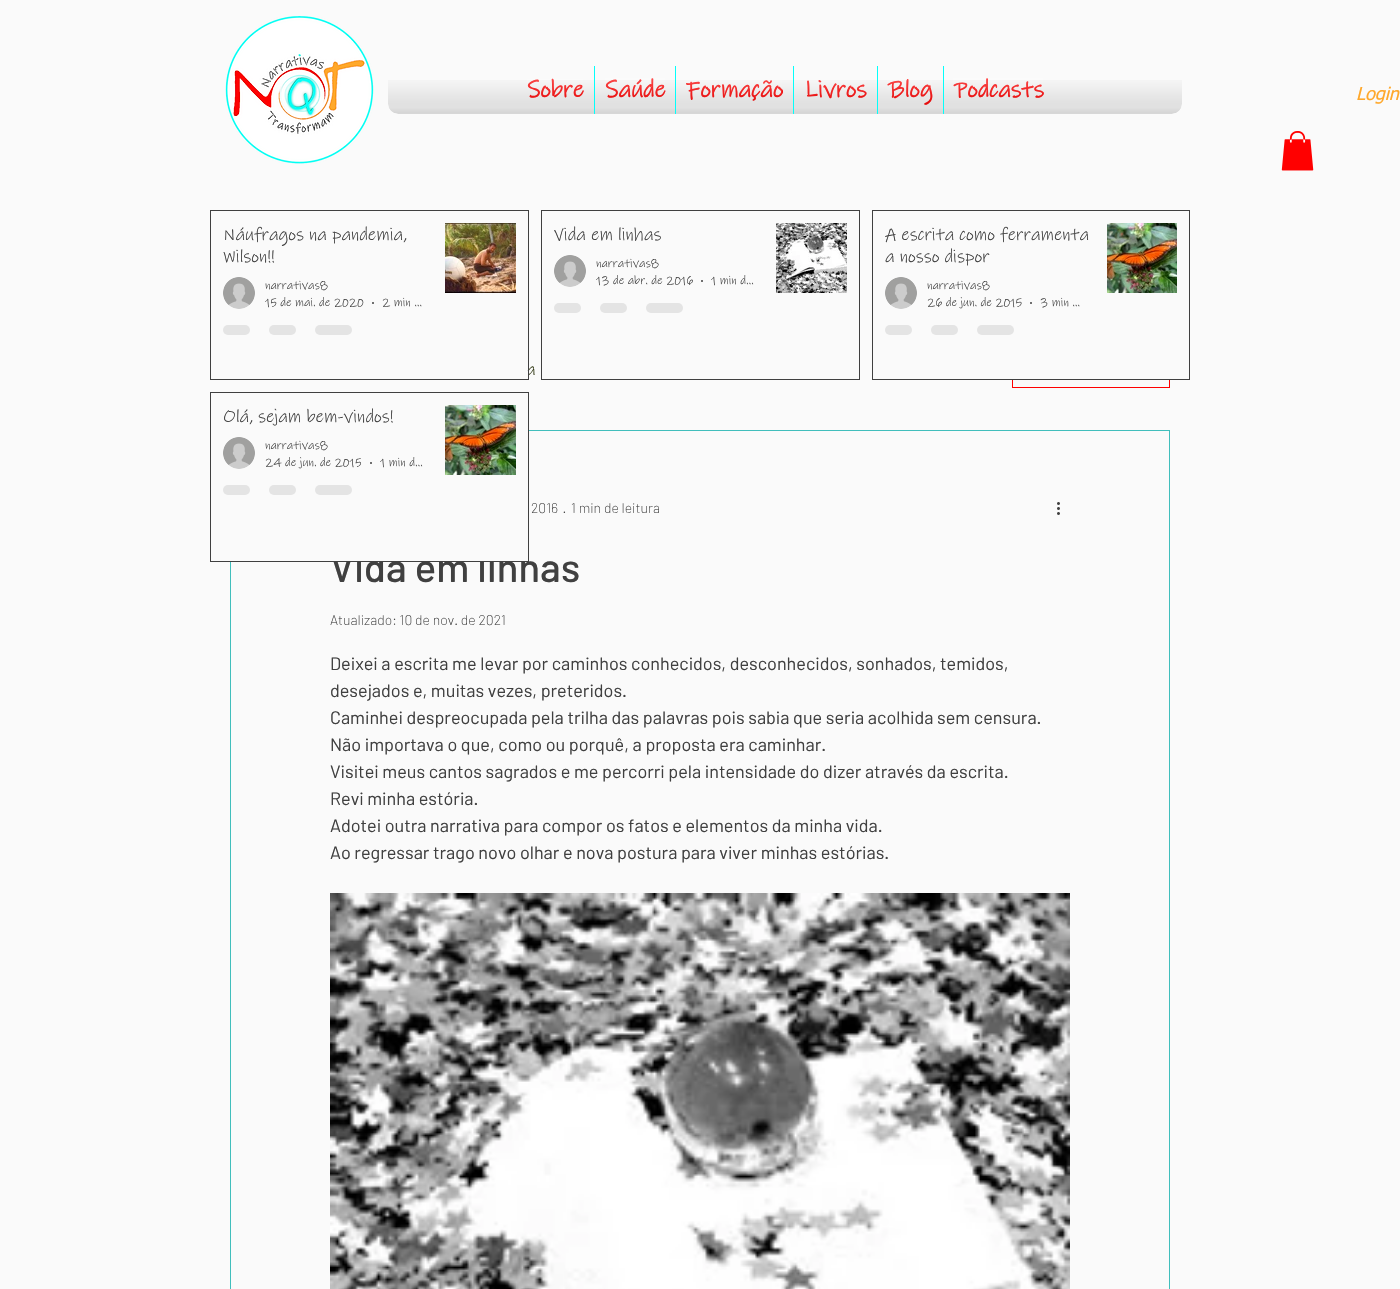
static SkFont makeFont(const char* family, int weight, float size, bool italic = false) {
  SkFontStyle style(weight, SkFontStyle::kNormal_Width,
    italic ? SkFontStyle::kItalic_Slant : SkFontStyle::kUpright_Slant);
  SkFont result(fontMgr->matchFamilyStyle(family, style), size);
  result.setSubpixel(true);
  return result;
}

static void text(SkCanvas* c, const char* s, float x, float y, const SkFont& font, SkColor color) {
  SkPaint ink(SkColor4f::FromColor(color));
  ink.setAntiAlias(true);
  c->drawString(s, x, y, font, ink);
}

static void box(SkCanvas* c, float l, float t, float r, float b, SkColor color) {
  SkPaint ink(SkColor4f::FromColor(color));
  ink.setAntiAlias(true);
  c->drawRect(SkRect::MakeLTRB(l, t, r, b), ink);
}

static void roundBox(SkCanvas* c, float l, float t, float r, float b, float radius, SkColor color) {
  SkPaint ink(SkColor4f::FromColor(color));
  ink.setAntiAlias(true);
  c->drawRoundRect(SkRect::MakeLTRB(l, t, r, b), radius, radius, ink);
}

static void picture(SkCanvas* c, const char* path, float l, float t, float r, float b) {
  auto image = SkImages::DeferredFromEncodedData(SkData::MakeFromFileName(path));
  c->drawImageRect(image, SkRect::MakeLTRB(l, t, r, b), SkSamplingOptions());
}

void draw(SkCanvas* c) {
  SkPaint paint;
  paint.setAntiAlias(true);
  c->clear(0xfffafafa);
  picture(c, "img_01.png", 225, 16, 374, 164);
  picture(c, "img_02.png", 388, 80, 1182, 114);
  box(c, 517, 80, 594, 114, 0xfffafafa);
  SkFont face1 = makeFont("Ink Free", 700, 24);
  text(c, "Sobre", 527, 97, face1, 0xffff0000);
  picture(c, "img_03.png", 527, 79, 583, 98);
  picture(c, "img_04.png", 517, 80, 594, 114);
  box(c, 595, 80, 675, 114, 0xfffafafa);
  box(c, 594, 66, 595, 114, 0xff04fffb);
  text(c, "Saúde", 605, 97, face1, 0xffff0000);
  picture(c, "img_05.png", 605, 78, 665, 98);
  picture(c, "img_06.png", 595, 80, 675, 114);
  box(c, 676, 80, 793, 114, 0xfffafafa);
  box(c, 675, 66, 676, 114, 0xff04fffb);
  text(c, "Formação", 686, 97, face1, 0xffff0000);
  picture(c, "img_07.png", 685, 80, 782, 101);
  picture(c, "img_08.png", 676, 80, 793, 114);
  box(c, 794, 80, 877, 114, 0xfffafafa);
  box(c, 793, 66, 794, 114, 0xff04fffb);
  text(c, "Livros", 804, 97, face1, 0xffff0000);
  picture(c, "img_09.png", 806, 80, 866, 99);
  picture(c, "img_10.png", 794, 80, 877, 114);
  box(c, 878, 80, 943, 114, 0xfffafafa);
  box(c, 877, 66, 878, 114, 0xff04fffb);
  text(c, "Blog", 888, 97, face1, 0xffff0000);
  picture(c, "img_11.png", 887, 80, 932, 105);
  picture(c, "img_12.png", 878, 80, 943, 114);
  box(c, 944, 80, 1054, 114, 0xfffafafa);
  box(c, 943, 66, 944, 114, 0xff04fffb);
  text(c, "Podcasts", 954, 97, face1, 0xffff0000);
  picture(c, "img_13.png", 953, 78, 1043, 98);
  picture(c, "img_14.png", 944, 80, 1054, 114);
  SkFont face2 = makeFont("tahoma", 400, 18, true);
  text(c, "Login", 1356, 100, face2, 0xffffa82b);
  picture(c, "img_15.png", 1281, 131, 1314, 171);
  SkFont face3 = makeFont("Ink Free", 400, 18);
  text(c, "a", 526, 375, face3, 0xff373e1b);
  box(c, 526, 371, 528, 376, 0xfffafafa);
  paint.setStyle(SkPaint::kStroke_Style);
  paint.setStrokeWidth(1);
  paint.setColor(0xff404040);
  c->drawRect(SkRect::MakeLTRB(210.5f, 210.5f, 528.5f, 379.5f), paint);
  text(c, "Náufragos na pandemia,", 223, 240, face3, 0xff404040);
  text(c, "Wilson!!", 223, 262, face3, 0xff404040);
  picture(c, "img_16.png", 223, 277, 255, 309);
  SkFont face4 = makeFont("Ink Free", 400, 12);
  text(c, "narrativas8", 265, 289, face4, 0xff404040);
  text(c, "15 de mai. de 2020", 265, 306, face4, 0xff404040);
  paint.setStyle(SkPaint::kFill_Style);
  c->drawCircle(373, 303, 1, paint);
  text(c, "2 min …", 382, 306, face4, 0xff404040);
  roundBox(c, 223, 325, 250, 335, 5, 0xffe4e4e4);
  roundBox(c, 269, 325, 296, 335, 5, 0xffe4e4e4);
  roundBox(c, 315, 325, 352, 335, 5, 0xffe4e4e4);
  picture(c, "img_17.png", 445, 223, 516, 293);
  paint.setStyle(SkPaint::kStroke_Style);
  c->drawRect(SkRect::MakeLTRB(541.5f, 210.5f, 859.5f, 379.5f), paint);
  text(c, "Vida em linhas", 554, 240, face3, 0xff404040);
  picture(c, "img_16.png", 554, 255, 586, 287);
  text(c, "narrativas8", 596, 267, face4, 0xff404040);
  text(c, "13 de abr. de 2016", 596, 284, face4, 0xff404040);
  paint.setStyle(SkPaint::kFill_Style);
  c->drawCircle(702, 281, 1, paint);
  text(c, "1 min d…", 711, 284, face4, 0xff404040);
  roundBox(c, 554, 303, 581, 313, 5, 0xffe4e4e4);
  roundBox(c, 600, 303, 627, 313, 5, 0xffe4e4e4);
  roundBox(c, 646, 303, 683, 313, 5, 0xffe4e4e4);
  picture(c, "img_18.png", 776, 223, 847, 293);
  paint.setStyle(SkPaint::kStroke_Style);
  paint.setColor(0xffff0000);
  c->drawRect(SkRect::MakeLTRB(1012.5f, 352.5f, 1169.5f, 387.5f), paint);
  box(c, 1012, 352, 1170, 379, 0xfffafafa);
  paint.setColor(0xff404040);
  c->drawRect(SkRect::MakeLTRB(872.5f, 210.5f, 1189.5f, 379.5f), paint);
  text(c, "A escrita como ferramenta", 885, 240, face3, 0xff404040);
  text(c, "a nosso dispor", 885, 262, face3, 0xff404040);
  picture(c, "img_16.png", 885, 277, 917, 309);
  text(c, "narrativas8", 927, 289, face4, 0xff404040);
  text(c, "26 de jun. de 2015", 927, 306, face4, 0xff404040);
  paint.setStyle(SkPaint::kFill_Style);
  c->drawCircle(1031, 303, 1, paint);
  text(c, "3 min …", 1040, 306, face4, 0xff404040);
  roundBox(c, 885, 325, 912, 335, 5, 0xffe4e4e4);
  roundBox(c, 931, 325, 958, 335, 5, 0xffe4e4e4);
  roundBox(c, 977, 325, 1014, 335, 5, 0xffe4e4e4);
  picture(c, "img_19.png", 1107, 223, 1177, 293);
  paint.setStyle(SkPaint::kStroke_Style);
  paint.setColor(0xff41bebc);
  c->drawRect(SkRect::MakeLTRB(230.5f, 430.5f, 1169.5f, 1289.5f), paint);
  SkFont face5 = makeFont("Barlow", 500, 40);
  text(c, "Vida em linhas", 330, 582, face5, 0xff404040);
  box(c, 230, 430, 528, 561, 0xfffafafa);
  paint.setColor(0xff404040);
  c->drawRect(SkRect::MakeLTRB(210.5f, 392.5f, 528.5f, 561.5f), paint);
  text(c, "Olá, sejam bem-vindos!", 223, 422, face3, 0xff404040);
  picture(c, "img_16.png", 223, 437, 255, 469);
  text(c, "narrativas8", 265, 449, face4, 0xff404040);
  text(c, "24 de jun. de 2015", 265, 466, face4, 0xff404040);
  paint.setStyle(SkPaint::kFill_Style);
  c->drawCircle(371, 463, 1, paint);
  text(c, "1 min d…", 380, 466, face4, 0xff404040);
  roundBox(c, 223, 485, 250, 495, 5, 0xffe4e4e4);
  roundBox(c, 269, 485, 296, 495, 5, 0xffe4e4e4);
  roundBox(c, 315, 485, 352, 495, 5, 0xffe4e4e4);
  picture(c, "img_20.png", 445, 405, 516, 475);
  SkFont face6 = makeFont("Barlow", 200, 14);
  text(c, "2016", 531, 513, face6, 0xff404040);
  text(c, "·", 564, 513, face6, 0xff404040);
  text(c, "1 min de leitura", 571, 513, face6, 0xff404040);
  picture(c, "img_21.png", 1057, 502, 1060, 515);
  text(c, "Atualizado: 10 de nov. de 2021", 330, 625, face6, 0xff404040);
  SkFont face7 = makeFont("Barlow", 400, 18);
  text(c, "Deixei a escrita me levar por caminhos conhecidos, desconhecidos, sonhados, temidos,", 330, 670, face7, 0xff404040);
  text(c, "desejados e, muitas vezes, preteridos.", 330, 697, face7, 0xff404040);
  text(c, "Caminhei despreocupada pela trilha das palavras pois sabia que seria acolhida sem censura.", 330, 724, face7, 0xff404040);
  text(c, "Não importava o que, como ou porquê, a proposta era caminhar.", 330, 751, face7, 0xff404040);
  text(c, "Visitei meus cantos sagrados e me percorri pela intensidade do dizer através da escrita.", 330, 778, face7, 0xff404040);
  text(c, "Revi minha estória.", 330, 805, face7, 0xff404040);
  text(c, "Adotei outra narrativa para compor os fatos e elementos da minha vida.", 330, 832, face7, 0xff404040);
  text(c, "Ao regressar trago novo olhar e nova postura para viver minhas estórias.", 330, 859, face7, 0xff404040);
  picture(c, "img_22.png", 330, 893, 1070, 1289);
}
